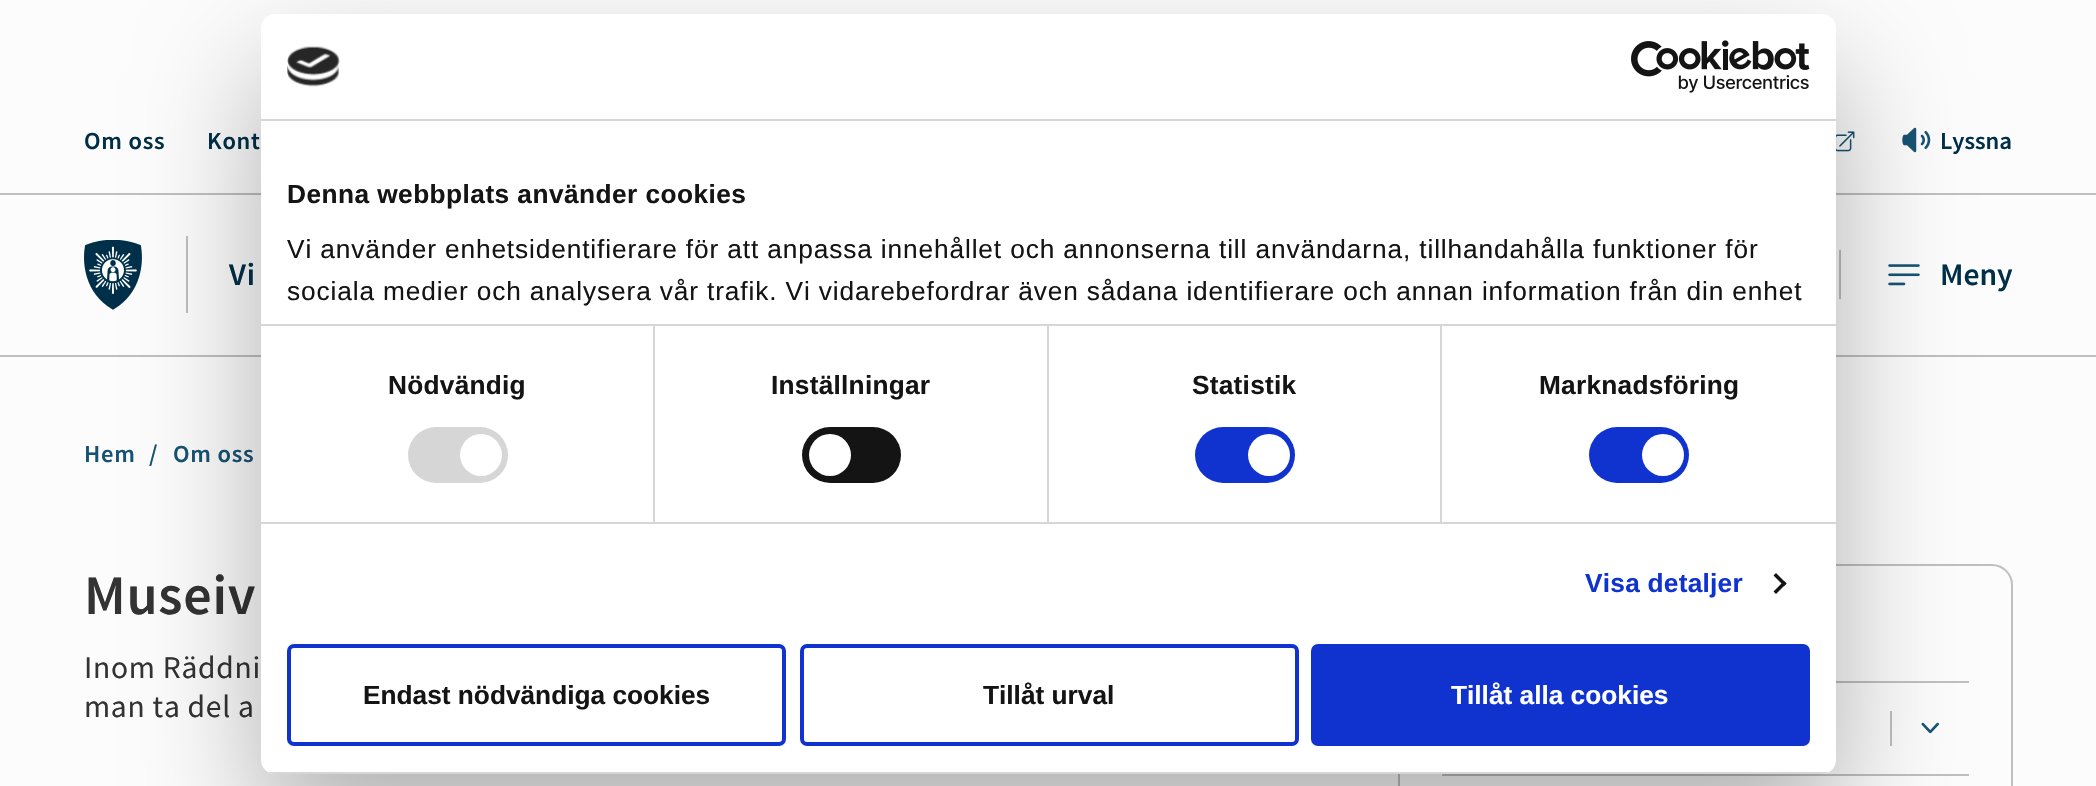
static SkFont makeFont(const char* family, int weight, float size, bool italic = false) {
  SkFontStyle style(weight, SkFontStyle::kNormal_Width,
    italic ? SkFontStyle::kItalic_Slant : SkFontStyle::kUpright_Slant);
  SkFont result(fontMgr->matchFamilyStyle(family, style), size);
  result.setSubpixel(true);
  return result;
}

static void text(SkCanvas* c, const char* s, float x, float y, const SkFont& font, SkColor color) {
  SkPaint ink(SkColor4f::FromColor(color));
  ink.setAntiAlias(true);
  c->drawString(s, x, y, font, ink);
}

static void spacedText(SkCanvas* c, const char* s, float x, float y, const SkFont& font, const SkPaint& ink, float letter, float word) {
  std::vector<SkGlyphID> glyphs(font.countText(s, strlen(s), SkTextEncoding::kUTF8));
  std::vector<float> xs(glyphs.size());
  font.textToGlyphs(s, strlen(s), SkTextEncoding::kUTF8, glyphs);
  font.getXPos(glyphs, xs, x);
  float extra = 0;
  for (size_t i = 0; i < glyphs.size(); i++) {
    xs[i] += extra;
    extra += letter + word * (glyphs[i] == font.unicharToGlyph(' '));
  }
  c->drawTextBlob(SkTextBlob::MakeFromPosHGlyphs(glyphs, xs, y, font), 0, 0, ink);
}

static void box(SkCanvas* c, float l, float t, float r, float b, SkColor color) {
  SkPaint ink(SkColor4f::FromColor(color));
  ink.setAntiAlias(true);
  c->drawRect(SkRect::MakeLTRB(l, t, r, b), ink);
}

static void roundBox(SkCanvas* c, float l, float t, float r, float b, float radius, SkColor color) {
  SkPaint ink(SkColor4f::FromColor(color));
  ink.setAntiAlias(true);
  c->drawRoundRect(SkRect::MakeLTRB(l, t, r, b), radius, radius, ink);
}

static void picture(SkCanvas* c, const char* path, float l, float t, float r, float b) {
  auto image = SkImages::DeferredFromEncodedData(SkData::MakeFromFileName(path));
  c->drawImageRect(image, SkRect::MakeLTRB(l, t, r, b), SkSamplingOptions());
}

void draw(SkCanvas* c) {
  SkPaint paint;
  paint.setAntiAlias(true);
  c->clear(0xfffcfcfc);
  box(c, 0, 193, 2096, 195, 0xffbfbfbf);
  SkFont face1 = makeFont("Source Sans Pro", 600, 24.5f);
  paint.setColor(0xff003049);
  spacedText(c, "Om oss", 84, 149, face1, paint, 0.75f, 0);
  spacedText(c, "Kont", 207, 149, face1, paint, 0.75f, 0);
  picture(c, "img_01.png", 1836, 131, 1855, 152);
  picture(c, "img_02.png", 1902, 127, 1931, 153);
  text(c, "Lyssna", 1940, 149, face1, 0xff003049);
  picture(c, "img_03.png", 84, 240, 142, 310);
  box(c, 186, 236, 188, 313, 0xffbfbfbf);
  SkFont face2 = makeFont("Source Sans Pro", 600, 31.5f);
  spacedText(c, "Vi", 229, 285, face2, paint, 0.75f, 0);
  box(c, 1839, 250, 1841, 299, 0xffbfbfbf);
  picture(c, "img_04.png", 1888, 264, 1920, 286);
  text(c, "Meny", 1940, 285, face2, 0xff003049);
  box(c, 0, 355, 2096, 357, 0xffbfbfbf);
  paint.setColor(0xff175373);
  spacedText(c, "Hem", 84, 462, face1, paint, 0.75f, 0);
  spacedText(c, "/", 149, 462, face1, paint, 0.75f, 0);
  spacedText(c, "Om oss", 173, 462, face1, paint, 0.75f, 0);
  SkFont face3 = makeFont("Source Sans Pro", 600, 56);
  paint.setColor(0xff333333);
  spacedText(c, "Museiv", 84, 614, face3, paint, 0.75f, 0);
  SkFont face4 = makeFont("Source Sans Pro", 400, 31.5f);
  spacedText(c, "Inom Räddni", 84, 678, face4, paint, 0.75f, 0);
  spacedText(c, "man ta del a", 84, 717, face4, paint, 0.75f, 0);
  paint.setStyle(SkPaint::kStroke_Style);
  paint.setStrokeWidth(2);
  paint.setColor(0xffbfbfbf);
  c->drawRoundRect(SkRect::MakeLTRB(1399, 565, 2012, 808), 20, 20, paint);
  box(c, 1836, 681, 1969, 683, 0xffbfbfbf);
  box(c, 1890, 711, 1892, 746, 0xffbfbfbf);
  picture(c, "img_05.png", 1921, 722, 1939, 734);
  box(c, 1442, 774, 1969, 776, 0xffbfbfbf);
  paint.setStyle(SkPaint::kFill_Style);
  paint.setColor(0x4d000000);
  paint.setMaskFilter(SkMaskFilter::MakeBlur(kNormal_SkBlurStyle, 59.5f));
  c->drawRoundRect(SkRect::MakeLTRB(261, 70, 1836, 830), 14, 14, paint);
  paint.setMaskFilter(nullptr);
  roundBox(c, 261, 14, 1836, 774, 14, 0xffffffff);
  box(c, 261, 119, 1836, 121, 0xffd6d6d6);
  picture(c, "img_06.png", 287, 46, 340, 87);
  picture(c, "img_07.png", 1631, 40, 1810, 93);
  box(c, 261, 324, 1836, 326, 0xffd6d6d6);
  SkFont face5 = makeFont("Liberation Sans", 700, 26.25f);
  paint.setColor(0xff141414);
  spacedText(c, "Denna webbplats använder cookies", 287, 203, face5, paint, 0.45f, 0);
  SkFont face6 = makeFont("Liberation Sans", 400, 26.25f);
  spacedText(c, "Vi använder enhetsidentifierare för att anpassa innehållet och annonserna till användarna, tillhandahålla funktioner för", 287, 258, face6, paint, 0.88f, 0);
  spacedText(c, "sociala medier och analysera vår trafik. Vi vidarebefordrar även sådana identifierare och annan information från din enhet", 287, 300, face6, paint, 0.88f, 0);
  box(c, 261, 522, 1836, 524, 0xffd6d6d6);
  box(c, 653, 326, 655, 522, 0xffd6d6d6);
  spacedText(c, "Nödvändig", 388, 394, face5, paint, 0.25f, 0);
  roundBox(c, 408, 427, 508, 483, 28, 0xffd6d6d6);
  paint.setColor(0xffffffff);
  c->drawCircle(481, 455, 21, paint);
  box(c, 1047, 326, 1049, 522, 0xffd6d6d6);
  paint.setColor(0xff141414);
  spacedText(c, "Inställningar", 771, 394, face5, paint, 0.25f, 0);
  roundBox(c, 802, 427, 901, 483, 28, 0xff141414);
  paint.setColor(0xffffffff);
  c->drawCircle(830, 455, 21, paint);
  box(c, 1440, 326, 1442, 522, 0xffd6d6d6);
  paint.setColor(0xff141414);
  spacedText(c, "Statistik", 1192, 394, face5, paint, 0.25f, 0);
  roundBox(c, 1195, 427, 1295, 483, 28, 0xff1032cf);
  paint.setColor(0xffffffff);
  c->drawCircle(1269, 455, 21, paint);
  paint.setColor(0xff141414);
  spacedText(c, "Marknadsföring", 1539, 394, face5, paint, 0.25f, 0);
  roundBox(c, 1589, 427, 1689, 483, 28, 0xff1032cf);
  paint.setColor(0xffffffff);
  c->drawCircle(1663, 455, 21, paint);
  paint.setColor(0xff1032cf);
  spacedText(c, "Visa detaljer", 1585, 592, face5, paint, 0.25f, 0);
  paint.setColor(0xff141414);
  c->drawPath(SkPathBuilder().moveTo(1776, 573).lineTo(1786.5f, 583.5f).lineTo(1784, 586).lineTo(1773.5f, 575.5f).close().detach(), paint);
  c->drawPath(SkPathBuilder().moveTo(1784, 581).lineTo(1786.5f, 583.5f).lineTo(1776, 594).lineTo(1773.5f, 591.5f).close().detach(), paint);
  c->save();
  c->clipPath(SkPathBuilder().moveTo(275, 14).lineTo(1822, 14).cubicTo(1829.5f, 14, 1836, 20.5f, 1836, 28).lineTo(1836, 760).cubicTo(1836, 767.5f, 1829.5f, 774, 1822, 774).lineTo(275, 774).cubicTo(267.5f, 774, 261, 767.5f, 261, 760).lineTo(261, 28).cubicTo(261, 20.5f, 267.5f, 14, 275, 14).close().detach(), true);
  box(c, 261, 772, 1836, 774, 0xffd6d6d6);
  c->restore();
  paint.setStyle(SkPaint::kStroke_Style);
  paint.setStrokeWidth(4);
  paint.setColor(0xff1032cf);
  c->drawRoundRect(SkRect::MakeLTRB(289, 646, 784, 744), 5, 5, paint);
  text(c, "Endast nödvändiga cookies", 363, 704, face5, 0xff141414);
  c->drawRoundRect(SkRect::MakeLTRB(802, 646, 1297, 744), 5, 5, paint);
  text(c, "Tillåt urval", 983, 704, face5, 0xff141414);
  paint.setStyle(SkPaint::kFill_Style);
  c->drawRoundRect(SkRect::MakeLTRB(1313, 646, 1808, 744), 5, 5, paint);
  paint.setStyle(SkPaint::kStroke_Style);
  c->drawRoundRect(SkRect::MakeLTRB(1313, 646, 1808, 744), 5, 5, paint);
  text(c, "Tillåt alla cookies", 1451, 704, face5, 0xffffffff);
}
